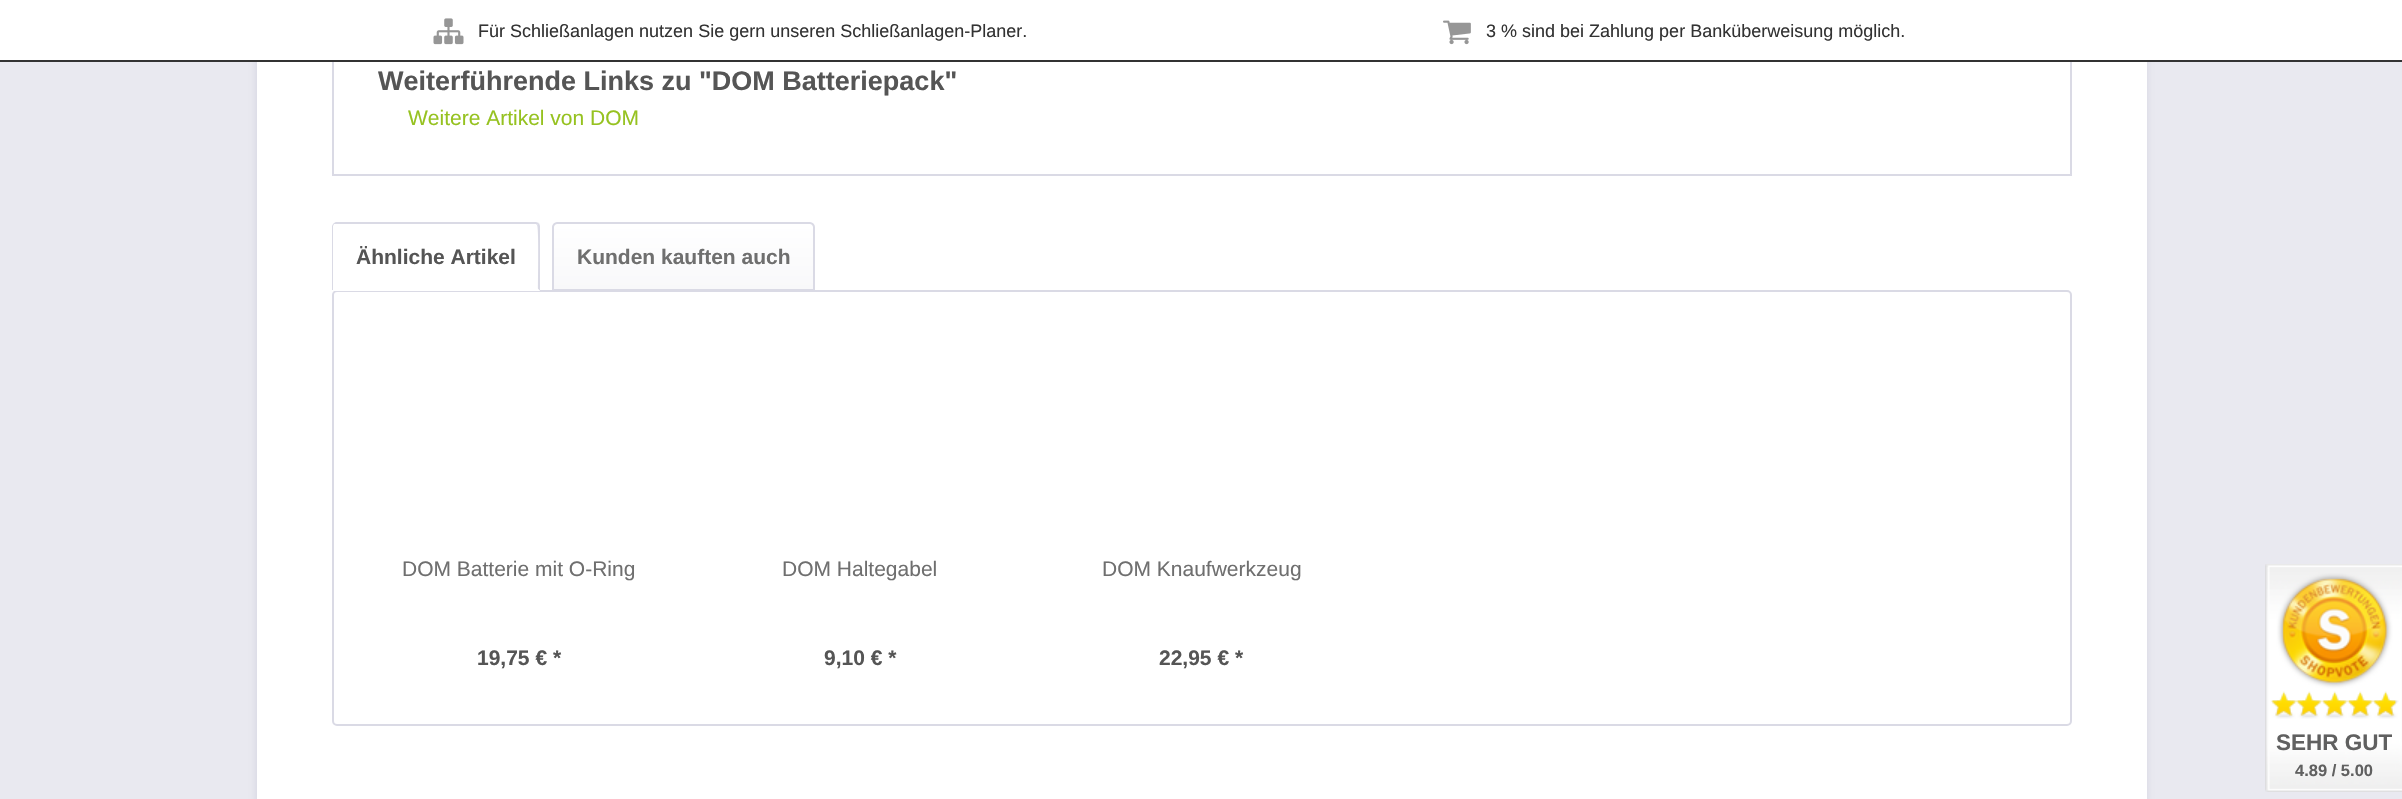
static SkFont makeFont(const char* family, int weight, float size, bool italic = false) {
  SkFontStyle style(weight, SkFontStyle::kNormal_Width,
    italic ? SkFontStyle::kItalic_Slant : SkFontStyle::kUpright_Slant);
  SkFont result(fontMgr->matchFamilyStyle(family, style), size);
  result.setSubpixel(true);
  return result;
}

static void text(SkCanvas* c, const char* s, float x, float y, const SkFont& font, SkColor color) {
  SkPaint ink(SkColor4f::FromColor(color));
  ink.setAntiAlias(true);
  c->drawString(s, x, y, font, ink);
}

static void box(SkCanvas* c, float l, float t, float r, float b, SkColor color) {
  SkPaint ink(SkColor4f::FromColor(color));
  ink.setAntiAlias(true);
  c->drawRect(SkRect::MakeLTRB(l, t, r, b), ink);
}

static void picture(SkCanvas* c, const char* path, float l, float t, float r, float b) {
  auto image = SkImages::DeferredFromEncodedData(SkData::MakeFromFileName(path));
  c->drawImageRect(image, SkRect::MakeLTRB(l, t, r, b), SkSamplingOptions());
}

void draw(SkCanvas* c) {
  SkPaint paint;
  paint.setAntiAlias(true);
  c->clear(0xffe9e9f0);
  paint.setColor(0xffdadae5);
  paint.setMaskFilter(SkMaskFilter::MakeBlur(kNormal_SkBlurStyle, 3));
  c->drawRect(SkRect::MakeLTRB(255, -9, 2148, 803), paint);
  paint.setMaskFilter(nullptr);
  box(c, 257, 62, 2147, 799, 0xffffffff);
  paint.setStyle(SkPaint::kStroke_Style);
  paint.setStrokeWidth(2);
  c->drawRect(SkRect::MakeLTRB(333, -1, 2071, 175), paint);
  box(c, 0, 0, 2402, 60, 0xffffffff);
  box(c, 0, 60, 2402, 62, 0xff333333);
  picture(c, "img_01.png", 433, 18, 464, 45);
  SkFont face1 = makeFont("Liberation Sans", 400, 18);
  text(c, "Für Schließanlagen nutzen Sie gern unseren Schließanlagen-Planer.", 478, 37, face1, 0xff333333);
  picture(c, "img_02.png", 1443, 20, 1471, 45);
  text(c, "3 % sind bei Zahlung per Banküberweisung möglich.", 1486, 37, face1, 0xff333333);
  SkFont face2 = makeFont("Liberation Sans", 700, 27);
  text(c, "Weiterführende Links zu \"DOM Batteriepack\"", 378, 90, face2, 0xff555555);
  SkFont face3 = makeFont("Liberation Sans", 400, 21);
  text(c, "Weitere Artikel von DOM", 408, 125, face3, 0xff96c220);
  c->drawRoundRect(SkRect::MakeLTRB(333, 291, 2071, 725), 4, 4, paint);
  paint.setStyle(SkPaint::kFill_Style);
  paint.setColor(0xffffffff);
  c->drawPath(SkPathBuilder().moveTo(337, 222).lineTo(535, 222).cubicTo(538, 222, 540, 224, 540, 227).lineTo(540, 291).lineTo(332, 291).lineTo(332, 227).cubicTo(332, 224, 334, 222, 337, 222).close().detach(), paint);
  paint.setColor(0xffdadae5);
  c->drawPath(SkPathBuilder().moveTo(336, 222).cubicTo(335, 222, 334, 223, 333, 224).lineTo(334, 224).lineTo(336, 224).lineTo(536, 224).lineTo(537, 225).lineTo(539, 223).lineTo(536, 222).close().detach(), paint);
  c->drawPath(SkPathBuilder().moveTo(540, 291).lineTo(540, 226).lineTo(539, 223).lineTo(537, 225).cubicTo(539, 226, 538, 282, 538, 289).close().detach(), paint);
  paint.setColor(0xffffffff);
  c->drawPath(SkPathBuilder().moveTo(540, 291).lineTo(538, 289).lineTo(538, 290).lineTo(333, 290).lineTo(332, 291).close().detach(), paint);
  paint.setColor(0xffdadae5);
  c->drawPath(SkPathBuilder().moveTo(333, 224).lineTo(332, 226).lineTo(332, 290).lineTo(333, 290).lineTo(333, 226).lineTo(334, 224).close().detach(), paint);
  SkFont face4 = makeFont("Liberation Sans", 700, 21);
  text(c, "Ähnliche Artikel", 356, 264, face4, 0xff555555);
  {
    const SkColor colors[] = {0xffffffff, 0xfff8f8fa};
    const float stops[] = {0, 1};
    const SkPoint ends[] = {{683, 224}, {683, 290}};
    paint.setShader(SkGradientShader::MakeLinear(ends, colors, stops, 2, SkTileMode::kClamp));
    paint.setAlpha(255);
  }
  c->drawPath(SkPathBuilder().moveTo(557, 224).lineTo(810, 224).cubicTo(811.5f, 224, 813, 225.5f, 813, 227).lineTo(813, 290).lineTo(554, 290).lineTo(554, 227).cubicTo(554, 225.5f, 555.5f, 224, 557, 224).close().detach(), paint);
  paint.setStyle(SkPaint::kStroke_Style);
  paint.setShader(nullptr);
  paint.setColor(0xffdadae5);
  c->drawPath(SkPathBuilder().moveTo(557, 223).lineTo(810, 223).cubicTo(812, 223, 814, 225, 814, 227).lineTo(814, 290).lineTo(553, 290).lineTo(553, 227).cubicTo(553, 225, 555, 223, 557, 223).close().detach(), paint);
  text(c, "Kunden kauften auch", 577, 264, face4, 0xff6f6f6f);
  text(c, "DOM Batterie mit O-Ring", 402, 576, face3, 0xff6f6f6f);
  text(c, "19,75 € *", 477, 665, face4, 0xff555555);
  text(c, "DOM Haltegabel", 782, 576, face3, 0xff6f6f6f);
  text(c, "9,10 € *", 824, 665, face4, 0xff555555);
  text(c, "DOM Knaufwerkzeug", 1102, 576, face3, 0xff6f6f6f);
  text(c, "22,95 € *", 1159, 665, face4, 0xff555555);
  picture(c, "img_03.png", 2265, 564, 2402, 792);
  picture(c, "img_04.png", 2271, 691, 2397, 716);
  SkFont face5 = makeFont("Liberation Sans", 700, 22.5f);
  text(c, "SEHR GUT", 2276, 750, face5, 0xff606060);
  SkFont face6 = makeFont("Liberation Sans", 700, 16.5f);
  text(c, "4.89 / 5.00", 2295, 776, face6, 0xff606060);
}
